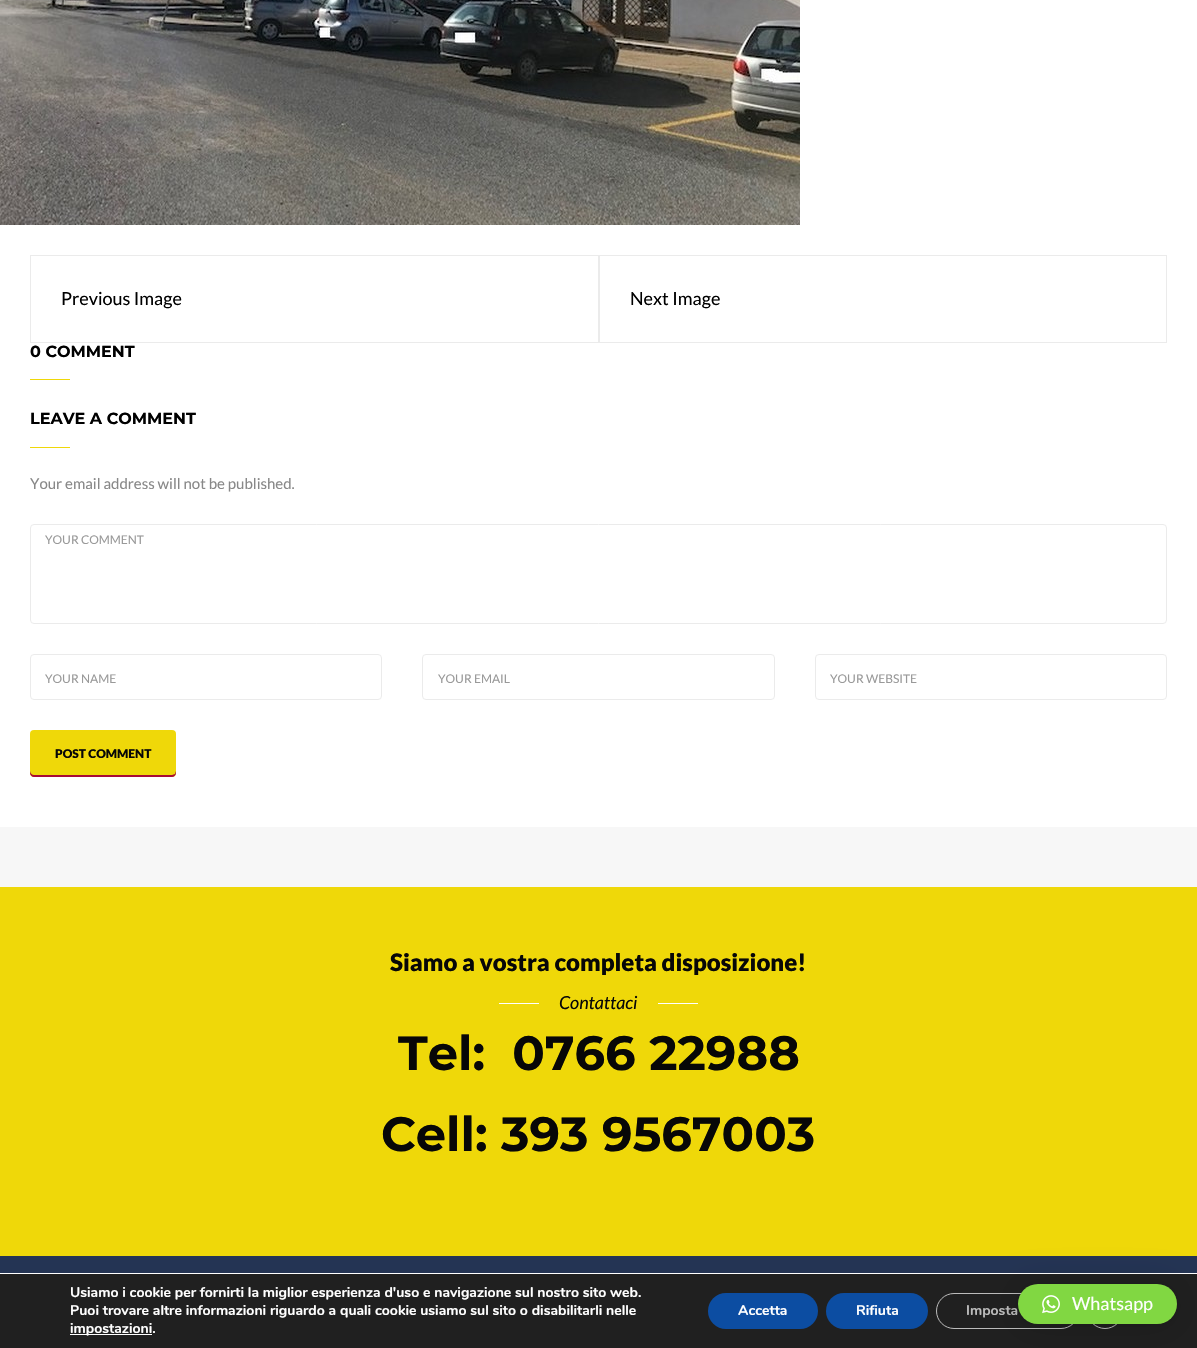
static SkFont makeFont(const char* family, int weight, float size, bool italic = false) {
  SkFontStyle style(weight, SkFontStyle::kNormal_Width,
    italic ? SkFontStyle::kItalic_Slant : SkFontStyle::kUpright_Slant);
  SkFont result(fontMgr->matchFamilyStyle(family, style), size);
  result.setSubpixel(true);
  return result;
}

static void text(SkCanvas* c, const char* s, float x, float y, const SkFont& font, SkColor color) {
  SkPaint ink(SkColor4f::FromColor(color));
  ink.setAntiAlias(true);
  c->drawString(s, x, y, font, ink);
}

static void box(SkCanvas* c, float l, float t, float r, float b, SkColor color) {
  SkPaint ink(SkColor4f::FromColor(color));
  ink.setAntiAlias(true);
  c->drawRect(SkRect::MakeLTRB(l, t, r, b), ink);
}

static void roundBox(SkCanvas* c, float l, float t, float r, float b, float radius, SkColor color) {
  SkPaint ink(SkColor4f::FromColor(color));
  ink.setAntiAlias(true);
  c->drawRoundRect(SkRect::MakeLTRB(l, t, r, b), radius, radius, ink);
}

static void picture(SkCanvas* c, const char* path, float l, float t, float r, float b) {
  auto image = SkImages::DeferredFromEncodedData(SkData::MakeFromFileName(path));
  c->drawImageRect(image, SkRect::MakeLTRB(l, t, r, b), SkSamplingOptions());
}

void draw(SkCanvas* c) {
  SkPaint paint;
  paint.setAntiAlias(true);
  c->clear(0xfff7f7f7);
  box(c, 0, 0, 1197, 827, 0xffffffff);
  picture(c, "img_01.png", 0, 0, 800, 225);
  paint.setStyle(SkPaint::kStroke_Style);
  paint.setStrokeWidth(1);
  paint.setColor(0xffebebeb);
  c->drawRect(SkRect::MakeLTRB(30.5f, 255.5f, 598.5f, 342.5f), paint);
  SkFont face1 = makeFont("Lato", 400, 18);
  text(c, "Previous Image", 61, 305, face1, 0xff000000);
  c->drawRect(SkRect::MakeLTRB(599.5f, 255.5f, 1166.5f, 342.5f), paint);
  text(c, "Next Image", 630, 305, face1, 0xff000000);
  SkFont face2 = makeFont("Montserrat", 700, 16);
  text(c, "0 COMMENT", 30, 357, face2, 0xff000000);
  box(c, 30, 379, 70, 380, 0xffefd809);
  text(c, "LEAVE A COMMENT", 30, 424, face2, 0xff000000);
  box(c, 30, 447, 70, 448, 0xffefd809);
  SkFont face3 = makeFont("Lato", 400, 15);
  text(c, "Your email address will not be published.", 30, 489, face3, 0xff888888);
  c->drawRoundRect(SkRect::MakeLTRB(30.5f, 524.5f, 1166.5f, 623.5f), 3.5f, 3.5f, paint);
  SkFont face4 = makeFont("Lato", 400, 12);
  text(c, "YOUR COMMENT", 45, 544, face4, 0xff999999);
  c->drawRoundRect(SkRect::MakeLTRB(30.5f, 654.5f, 381.5f, 699.5f), 3.5f, 3.5f, paint);
  text(c, "YOUR NAME", 45, 683, face4, 0xff999999);
  c->drawRoundRect(SkRect::MakeLTRB(422.5f, 654.5f, 774.5f, 699.5f), 3.5f, 3.5f, paint);
  text(c, "YOUR EMAIL", 438, 683, face4, 0xff999999);
  c->drawRoundRect(SkRect::MakeLTRB(815.5f, 654.5f, 1166.5f, 699.5f), 3.5f, 3.5f, paint);
  text(c, "YOUR WEBSITE", 830, 683, face4, 0xff999999);
  roundBox(c, 30, 730, 176, 777, 4, 0xffefd809);
  paint.setStyle(SkPaint::kFill_Style);
  paint.setColor(0xffa80b35);
  c->drawPath(SkPathBuilder().moveTo(30, 771).lineTo(30, 773).cubicTo(30, 775, 32, 777, 34, 777).lineTo(172, 777).cubicTo(174, 777, 176, 775, 176, 773).lineTo(176, 771).lineTo(175, 774).lineTo(172, 775).lineTo(34, 775).cubicTo(32, 775, 30, 773, 30, 771).close().detach(), paint);
  SkFont face5 = makeFont("Lato", 900, 12);
  text(c, "POST COMMENT", 55, 758, face5, 0xff070707);
  box(c, 0, 887, 1197, 1256, 0xffefd809);
  SkFont face6 = makeFont("Lato", 900, 24);
  text(c, "Siamo a vostra completa disposizione!", 390, 971, face6, 0xff070707);
  box(c, 499, 1003, 539, 1004, 0xffffffff);
  SkFont face7 = makeFont("Lato", 400, 18, true);
  text(c, "Contattaci", 559, 1009, face7, 0xff070707);
  box(c, 658, 1003, 698, 1004, 0xffffffff);
  SkFont face8 = makeFont("Montserrat", 700, 48);
  text(c, "Tel:  0766 22988", 398, 1070, face8, 0xff070707);
  text(c, "Cell: 393 9567003", 381, 1151, face8, 0xff070707);
  box(c, 0, 1256, 1197, 1273, 0xff243454);
  box(c, 0, 1274, 1197, 1348, 0xff202020);
  box(c, 0, 1273, 1197, 1274, 0xffffffff);
  SkFont face9 = makeFont("Nunito", 700, 14);
  text(c, "Usiamo i cookie per fornirti la miglior esperienza d'uso e navigazione sul nostro sito web.", 70, 1297, face9, 0xffffffff);
  text(c, "Puoi trovare altre informazioni riguardo a quali cookie usiamo sul sito o disabilitarli nelle", 70, 1315, face9, 0xffffffff);
  box(c, 70, 1334, 152, 1335, 0xffffffff);
  text(c, "impostazioni.", 70, 1333, face9, 0xffffffff);
  roundBox(c, 708, 1293, 818, 1329, 18, 0xff0c4da2);
  text(c, "Accetta", 738, 1315, face9, 0xffffffff);
  roundBox(c, 826, 1293, 928, 1329, 18, 0xff0c4da2);
  text(c, "Rifiuta", 856, 1315, face9, 0xffffffff);
  paint.setStyle(SkPaint::kStroke_Style);
  paint.setColor(0xffbcbcbc);
  c->drawRoundRect(SkRect::MakeLTRB(936.5f, 1293.5f, 1078.5f, 1328.5f), 17.5f, 17.5f, paint);
  text(c, "Imposta", 966, 1315, face9, 0xffbcbcbc);
  c->drawCircle(1105, 1311, 17.5f, paint);
  paint.setStyle(SkPaint::kFill_Style);
  paint.setColor(0x29000000);
  paint.setMaskFilter(SkMaskFilter::MakeBlur(kNormal_SkBlurStyle, 16));
  c->drawRoundRect(SkRect::MakeLTRB(1018, 1286, 1177, 1326), 20, 20, paint);
  paint.setMaskFilter(nullptr);
  paint.setColor(0x0f000000);
  paint.setMaskFilter(SkMaskFilter::MakeBlur(kNormal_SkBlurStyle, 3));
  c->drawRoundRect(SkRect::MakeLTRB(1018, 1285, 1177, 1325), 20, 20, paint);
  paint.setMaskFilter(nullptr);
  roundBox(c, 1018, 1284, 1177, 1324, 20, 0xff81d742);
  picture(c, "img_02.png", 1042, 1295, 1060, 1314);
  text(c, "Whatsapp", 1072, 1310, face1, 0xffffffff);
}
